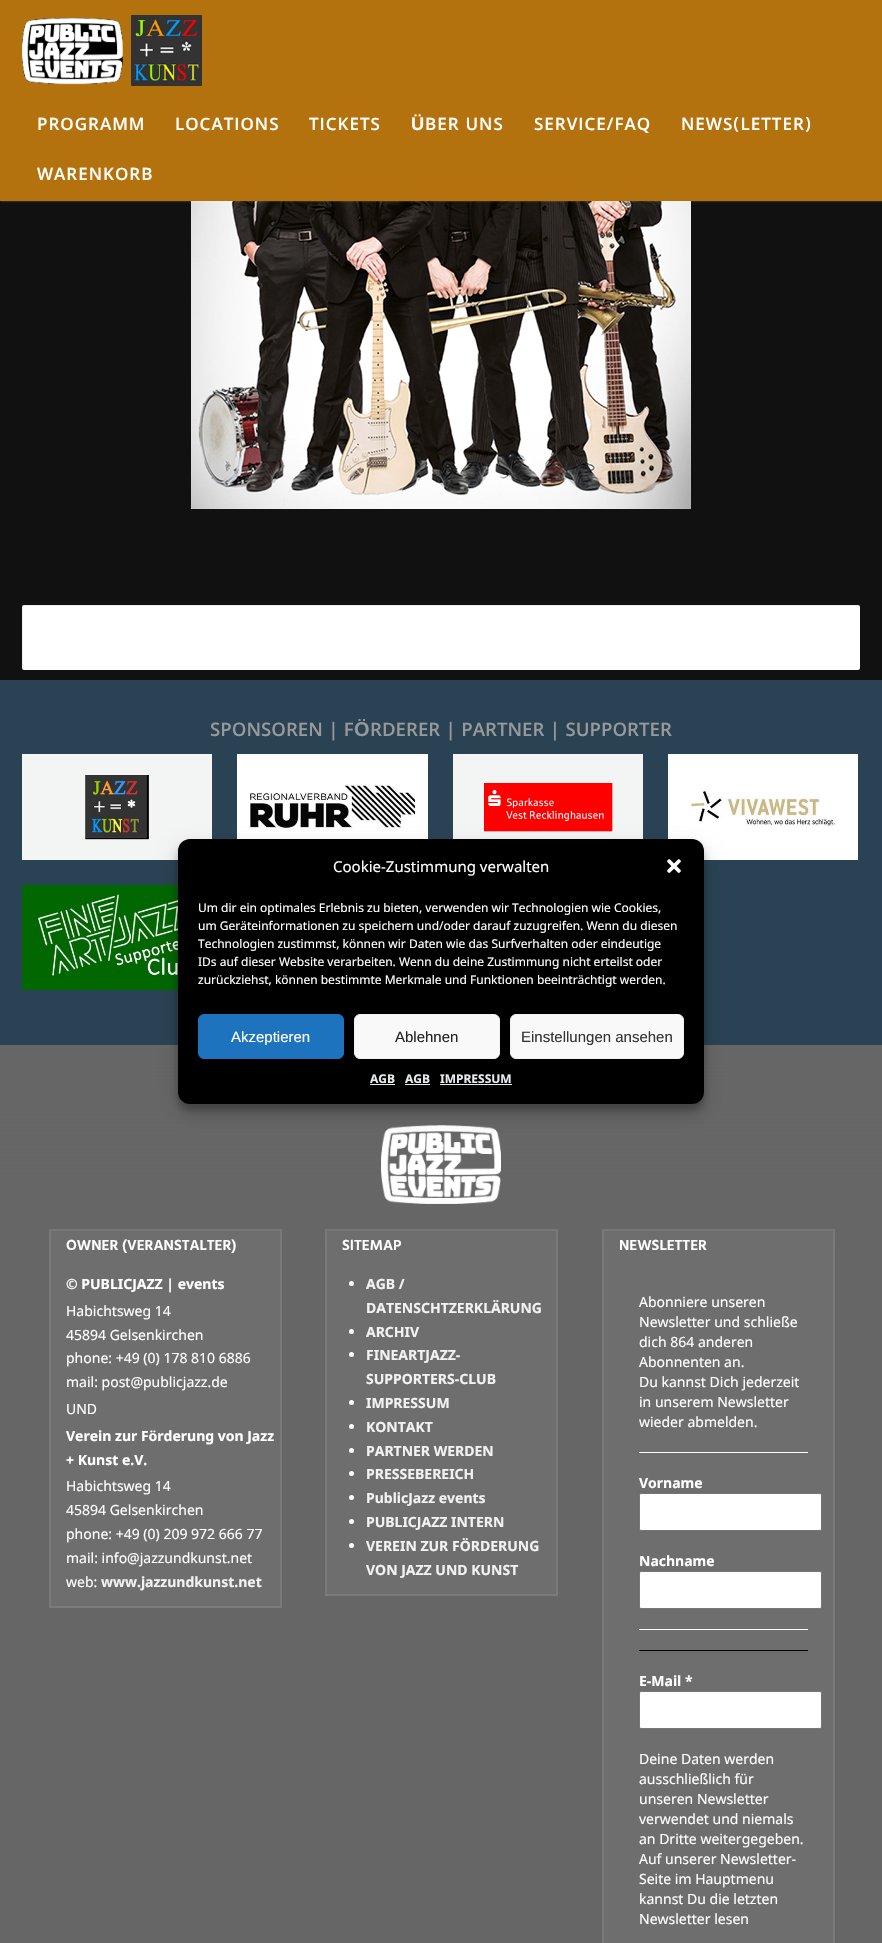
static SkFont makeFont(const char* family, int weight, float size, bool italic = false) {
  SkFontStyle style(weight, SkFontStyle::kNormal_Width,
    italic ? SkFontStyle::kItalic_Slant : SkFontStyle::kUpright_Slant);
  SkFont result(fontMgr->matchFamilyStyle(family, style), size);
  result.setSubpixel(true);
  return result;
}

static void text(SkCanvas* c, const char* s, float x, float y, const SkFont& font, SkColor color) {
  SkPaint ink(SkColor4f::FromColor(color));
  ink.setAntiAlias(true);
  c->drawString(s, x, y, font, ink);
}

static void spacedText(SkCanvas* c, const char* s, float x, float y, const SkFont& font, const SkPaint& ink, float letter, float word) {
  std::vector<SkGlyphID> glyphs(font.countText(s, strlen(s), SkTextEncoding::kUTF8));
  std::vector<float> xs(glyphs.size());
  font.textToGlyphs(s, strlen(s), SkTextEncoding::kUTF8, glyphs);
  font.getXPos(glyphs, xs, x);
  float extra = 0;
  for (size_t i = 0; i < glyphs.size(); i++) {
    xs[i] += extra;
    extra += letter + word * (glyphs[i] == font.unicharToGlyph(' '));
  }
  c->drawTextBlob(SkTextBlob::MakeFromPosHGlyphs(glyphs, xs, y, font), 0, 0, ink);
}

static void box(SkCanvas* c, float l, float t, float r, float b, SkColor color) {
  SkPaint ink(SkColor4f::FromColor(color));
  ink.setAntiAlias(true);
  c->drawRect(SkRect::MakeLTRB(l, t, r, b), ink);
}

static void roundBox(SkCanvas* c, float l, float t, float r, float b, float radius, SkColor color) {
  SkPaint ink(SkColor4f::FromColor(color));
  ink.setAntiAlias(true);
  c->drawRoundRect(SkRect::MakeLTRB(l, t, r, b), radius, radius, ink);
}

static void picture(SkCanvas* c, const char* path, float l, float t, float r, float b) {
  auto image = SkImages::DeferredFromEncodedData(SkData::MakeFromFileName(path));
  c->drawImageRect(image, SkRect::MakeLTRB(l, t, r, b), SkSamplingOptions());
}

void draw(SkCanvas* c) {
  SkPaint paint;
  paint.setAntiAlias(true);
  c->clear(0xff111111);
  picture(c, "img_02.png", 191, 201, 691, 509);
  paint.setColor(0x1affffff);
  paint.setMaskFilter(SkMaskFilter::MakeBlur(kNormal_SkBlurStyle, 0.5f));
  c->drawRect(SkRect::MakeLTRB(1, 1, 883, 202), paint);
  paint.setMaskFilter(nullptr);
  box(c, 0, 0, 882, 201, 0xffb3720d);
  picture(c, "img_01.png", 22, 15, 202, 86);
  SkFont face1 = makeFont("Khula", 600, 18.25f);
  paint.setColor(0xffffffff);
  spacedText(c, "PROGRAMM", 37, 130, face1, paint, 1, 0);
  spacedText(c, "LOCATIONS", 175, 130, face1, paint, 1, 0);
  spacedText(c, "TICKETS", 309, 130, face1, paint, 1, 0);
  SkFont face2 = makeFont("Liberation Sans", 700, 18.25f);
  spacedText(c, "Ü", 411, 130, face2, paint, 1, 0);
  spacedText(c, "BER UNS", 425, 130, face1, paint, 1, 0);
  spacedText(c, "SERVICE/FAQ", 534, 130, face1, paint, 1, 0);
  spacedText(c, "NEWS(LETTER)", 681, 130, face1, paint, 1, 0);
  spacedText(c, "WARENKORB", 37, 180, face1, paint, 1, 0);
  roundBox(c, 22, 605, 860, 670, 2, 0xffffffff);
  box(c, 23, 605, 859, 606, 0x0f000000);
  box(c, 22, 606, 23, 669, 0x0f000000);
  box(c, 0, 680, 882, 1045, 0xff2a4354);
  SkFont face3 = makeFont("Khula", 600, 20);
  text(c, "SPONSOREN | F", 210, 736, face3, 0xff999999);
  SkFont face4 = makeFont("Liberation Sans", 700, 20);
  text(c, "Ö", 354, 736, face4, 0xff999999);
  text(c, "RDERER | PARTNER | SUPPORTER", 370, 736, face3, 0xff999999);
  picture(c, "img_03.png", 22, 754, 212, 860);
  picture(c, "img_04.png", 237, 754, 428, 839);
  picture(c, "img_05.png", 453, 754, 643, 839);
  picture(c, "img_06.png", 668, 754, 858, 860);
  picture(c, "img_07.png", 22, 885, 178, 990);
  box(c, 0, 1046, 882, 1943, 0xff666666);
  paint.setColor(0xff6e6e6e);
  c->drawRect(SkRect::MakeLTRB(50, 1230, 281, 1607), paint);
  paint.setStyle(SkPaint::kStroke_Style);
  paint.setStrokeWidth(2);
  paint.setColor(0xff7a7a7a);
  c->drawRect(SkRect::MakeLTRB(50, 1230, 281, 1607), paint);
  SkFont face5 = makeFont("Hind", 600, 15);
  text(c, "OWNER (VERANSTALTER)", 66, 1250, face5, 0xffffffff);
  paint.setStyle(SkPaint::kFill_Style);
  paint.setColor(0xff6e6e6e);
  c->drawRect(SkRect::MakeLTRB(326, 1230, 557, 1595), paint);
  paint.setStyle(SkPaint::kStroke_Style);
  paint.setColor(0xff7a7a7a);
  c->drawRect(SkRect::MakeLTRB(326, 1230, 557, 1595), paint);
  text(c, "SITEMAP", 342, 1250, face5, 0xffffffff);
  paint.setStyle(SkPaint::kFill_Style);
  paint.setColor(0xff6e6e6e);
  c->drawRect(SkRect::MakeLTRB(603, 1230, 834, 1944), paint);
  paint.setStyle(SkPaint::kStroke_Style);
  paint.setColor(0xff7a7a7a);
  c->drawRect(SkRect::MakeLTRB(603, 1230, 834, 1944), paint);
  text(c, "NEWSLETTER", 619, 1250, face5, 0xffffffff);
  paint.setStyle(SkPaint::kFill_Style);
  {
    const SkColor colors[] = {0xff666666, 0x00666666};
    const float stops[] = {0, 1};
    const SkPoint ends[] = {{441, 1045}, {441, 1245}};
    paint.setShader(SkGradientShader::MakeLinear(ends, colors, stops, 2, SkTileMode::kClamp));
    paint.setAlpha(255);
  }
  c->drawRect(SkRect::MakeLTRB(0, 1045, 882, 1241), paint);
  paint.setShader(nullptr);
  paint.setColor(0x3b000000);
  paint.setMaskFilter(SkMaskFilter::MakeBlur(kNormal_SkBlurStyle, 3));
  c->drawRoundRect(SkRect::MakeLTRB(178, 845, 704, 1110), 12, 12, paint);
  paint.setMaskFilter(nullptr);
  picture(c, "img_09.png", 381, 1125, 501, 1204);
  paint.setColor(0x30000000);
  paint.setMaskFilter(SkMaskFilter::MakeBlur(kNormal_SkBlurStyle, 10));
  c->drawRoundRect(SkRect::MakeLTRB(178, 849, 704, 1114), 12, 12, paint);
  paint.setMaskFilter(nullptr);
  roundBox(c, 178, 839, 704, 1104, 12, 0xff000000);
  SkFont face6 = makeFont("Noto Sans", 400, 15);
  text(c, "Cookie-Zustimmung verwalten", 333, 872, face6, 0xffffffff);
  picture(c, "img_08.png", 667, 859, 681, 873);
  SkFont face7 = makeFont("Noto Sans", 400, 12);
  text(c, "Um dir ein optimales Erlebnis zu bieten, verwenden wir Technologien wie Cookies,", 198, 912, face7, 0xffffffff);
  text(c, "um Geräteinformationen zu speichern und/oder darauf zuzugreifen. Wenn du diesen", 198, 930, face7, 0xffffffff);
  text(c, "Technologien zustimmst, können wir Daten wie das Surfverhalten oder eindeutige", 198, 948, face7, 0xffffffff);
  text(c, "IDs auf dieser Website verarbeiten. Wenn du deine Zustimmung nicht erteilst oder", 198, 966, face7, 0xffffffff);
  text(c, "zurückziehst, können bestimmte Merkmale und Funktionen beeinträchtigt werden.", 198, 984, face7, 0xffffffff);
  paint.setColor(0xff1e73be);
  c->drawRoundRect(SkRect::MakeLTRB(198.5f, 1014.5f, 343.5f, 1058.5f), 5.5f, 5.5f, paint);
  paint.setStyle(SkPaint::kStroke_Style);
  paint.setStrokeWidth(1);
  c->drawRoundRect(SkRect::MakeLTRB(198.5f, 1014.5f, 343.5f, 1058.5f), 5.5f, 5.5f, paint);
  SkFont face8 = makeFont("Liberation Sans", 400, 15);
  text(c, "Akzeptieren", 231, 1042, face8, 0xffffffff);
  paint.setStyle(SkPaint::kFill_Style);
  paint.setColor(0xfff9f9f9);
  c->drawRoundRect(SkRect::MakeLTRB(354.5f, 1014.5f, 499.5f, 1058.5f), 5.5f, 5.5f, paint);
  paint.setStyle(SkPaint::kStroke_Style);
  paint.setColor(0xfff2f2f2);
  c->drawRoundRect(SkRect::MakeLTRB(354.5f, 1014.5f, 499.5f, 1058.5f), 5.5f, 5.5f, paint);
  text(c, "Ablehnen", 395, 1042, face8, 0xff222222);
  paint.setStyle(SkPaint::kFill_Style);
  paint.setColor(0xfff9f9f9);
  c->drawRoundRect(SkRect::MakeLTRB(510.5f, 1014.5f, 683.5f, 1058.5f), 5.5f, 5.5f, paint);
  paint.setStyle(SkPaint::kStroke_Style);
  paint.setColor(0xfff2f2f2);
  c->drawRoundRect(SkRect::MakeLTRB(510.5f, 1014.5f, 683.5f, 1058.5f), 5.5f, 5.5f, paint);
  text(c, "Einstellungen ansehen", 521, 1042, face8, 0xff333333);
  SkFont face9 = makeFont("Noto Sans", 700, 12);
  text(c, "AGB", 370, 1083, face9, 0xffe8ebef);
  box(c, 370, 1084, 395, 1085, 0xffe8ebef);
  text(c, "AGB", 405, 1083, face9, 0xffe8ebef);
  box(c, 405, 1084, 430, 1085, 0xffe8ebef);
  text(c, "IMPRESSUM", 440, 1083, face9, 0xffe8ebef);
  box(c, 440, 1084, 512, 1085, 0xffe8ebef);
  SkFont face10 = makeFont("Noto Sans", 700, 14);
  text(c, "© PUBLICJAZZ | events", 66, 1289, face10, 0xffffffff);
  SkFont face11 = makeFont("Noto Sans", 400, 14);
  text(c, "Habichtsweg 14", 66, 1316, face11, 0xffffffff);
  text(c, "45894 Gelsenkirchen", 66, 1340, face11, 0xffffffff);
  text(c, "phone: +49 (0) 178 810 6886", 66, 1363, face11, 0xffffffff);
  text(c, "mail: post@publicjazz.de", 66, 1387, face11, 0xffffffff);
  text(c, "UND", 66, 1414, face11, 0xffffffff);
  text(c, "Verein zur Förderung von Jazz", 66, 1441, face10, 0xffffffff);
  text(c, "+ Kunst e.V.", 66, 1465, face10, 0xffffffff);
  text(c, "Habichtsweg 14", 66, 1491, face11, 0xffffffff);
  text(c, "45894 Gelsenkirchen", 66, 1515, face11, 0xffffffff);
  text(c, "phone: +49 (0) 209 972 666 77", 66, 1539, face11, 0xffffffff);
  text(c, "mail: info@jazzundkunst.net", 66, 1563, face11, 0xffffffff);
  text(c, "web:", 66, 1587, face11, 0xffffffff);
  text(c, "www.jazzundkunst.net", 101, 1587, face10, 0xfff2f2f2);
  paint.setStyle(SkPaint::kFill_Style);
  paint.setColor(0xffffffff);
  c->drawCircle(351.5f, 1283.5f, 2.5f, paint);
  text(c, "AGB /", 366, 1289, face10, 0xfff2f2f2);
  text(c, "DATENSCHTZERKLÄRUNG", 366, 1313, face10, 0xfff2f2f2);
  c->drawCircle(351.5f, 1331.5f, 2.5f, paint);
  text(c, "ARCHIV", 366, 1337, face10, 0xfff2f2f2);
  c->drawCircle(351.5f, 1354.5f, 2.5f, paint);
  text(c, "FINEARTJAZZ-", 366, 1360, face10, 0xfff2f2f2);
  text(c, "SUPPORTERS-CLUB", 366, 1384, face10, 0xfff2f2f2);
  c->drawCircle(351.5f, 1402.5f, 2.5f, paint);
  text(c, "IMPRESSUM", 366, 1408, face10, 0xfff2f2f2);
  c->drawCircle(351.5f, 1426.5f, 2.5f, paint);
  text(c, "KONTAKT", 366, 1432, face10, 0xfff2f2f2);
  c->drawCircle(351.5f, 1450.5f, 2.5f, paint);
  text(c, "PARTNER WERDEN", 366, 1456, face10, 0xfff2f2f2);
  c->drawCircle(351.5f, 1473.5f, 2.5f, paint);
  text(c, "PRESSEBEREICH", 366, 1479, face10, 0xfff2f2f2);
  c->drawCircle(351.5f, 1497.5f, 2.5f, paint);
  text(c, "PublicJazz events", 366, 1503, face10, 0xfff2f2f2);
  c->drawCircle(351.5f, 1521.5f, 2.5f, paint);
  text(c, "PUBLICJAZZ INTERN", 366, 1527, face10, 0xfff2f2f2);
  c->drawCircle(351.5f, 1545.5f, 2.5f, paint);
  text(c, "VEREIN ZUR FÖRDERUNG", 366, 1551, face10, 0xfff2f2f2);
  text(c, "VON JAZZ UND KUNST", 366, 1575, face10, 0xfff2f2f2);
  text(c, "Abonniere unseren", 639, 1307, face11, 0xffffffff);
  text(c, "Newsletter und schließe", 639, 1327, face11, 0xffffffff);
  text(c, "dich 864 anderen", 639, 1347, face11, 0xffffffff);
  text(c, "Abonnenten an.", 639, 1367, face11, 0xffffffff);
  text(c, "Du kannst Dich jederzeit", 639, 1387, face11, 0xffffffff);
  text(c, "in unserem Newsletter", 639, 1407, face11, 0xffffffff);
  text(c, "wieder abmelden.", 639, 1427, face11, 0xffffffff);
  box(c, 639, 1452, 808, 1453, 0xffffffff);
  text(c, "Vorname", 639, 1488, face10, 0xffffffff);
  c->drawRoundRect(SkRect::MakeLTRB(639.5f, 1493.5f, 821.5f, 1530.5f), 1.5f, 1.5f, paint);
  paint.setStyle(SkPaint::kStroke_Style);
  paint.setColor(0xff767676);
  c->drawRoundRect(SkRect::MakeLTRB(639.5f, 1493.5f, 821.5f, 1530.5f), 1.5f, 1.5f, paint);
  text(c, "Nachname", 639, 1566, face10, 0xffffffff);
  paint.setStyle(SkPaint::kFill_Style);
  paint.setColor(0xffffffff);
  c->drawRoundRect(SkRect::MakeLTRB(639.5f, 1571.5f, 821.5f, 1608.5f), 1.5f, 1.5f, paint);
  paint.setStyle(SkPaint::kStroke_Style);
  paint.setColor(0xff767676);
  c->drawRoundRect(SkRect::MakeLTRB(639.5f, 1571.5f, 821.5f, 1608.5f), 1.5f, 1.5f, paint);
  box(c, 639, 1629, 808, 1630, 0xffffffff);
  box(c, 639, 1650, 808, 1651, 0xff000000);
  text(c, "E-Mail *", 639, 1686, face10, 0xffffffff);
  paint.setStyle(SkPaint::kFill_Style);
  paint.setColor(0xffffffff);
  c->drawRoundRect(SkRect::MakeLTRB(639.5f, 1691.5f, 821.5f, 1728.5f), 1.5f, 1.5f, paint);
  paint.setStyle(SkPaint::kStroke_Style);
  paint.setColor(0xff767676);
  c->drawRoundRect(SkRect::MakeLTRB(639.5f, 1691.5f, 821.5f, 1728.5f), 1.5f, 1.5f, paint);
  text(c, "Deine Daten werden", 639, 1764, face11, 0xffffffff);
  text(c, "ausschließlich für", 639, 1784, face11, 0xffffffff);
  text(c, "unseren Newsletter", 639, 1804, face11, 0xffffffff);
  text(c, "verwendet und niemals", 639, 1824, face11, 0xffffffff);
  text(c, "an Dritte weitergegeben.", 639, 1844, face11, 0xffffffff);
  text(c, "Auf unserer Newsletter-", 639, 1864, face11, 0xffffffff);
  text(c, "Seite im Hauptmenu", 639, 1884, face11, 0xffffffff);
  text(c, "kannst Du die letzten", 639, 1904, face11, 0xffffffff);
  text(c, "Newsletter lesen", 639, 1924, face11, 0xffffffff);
}
